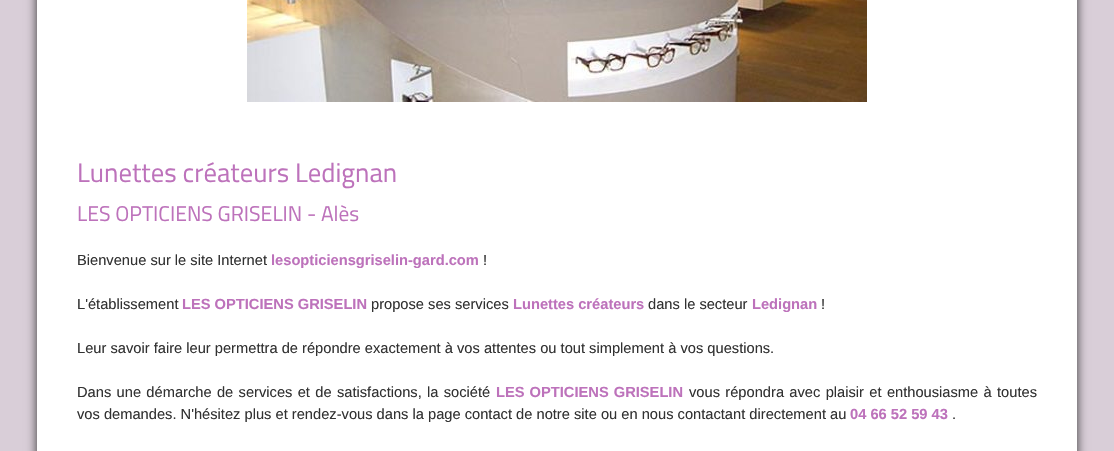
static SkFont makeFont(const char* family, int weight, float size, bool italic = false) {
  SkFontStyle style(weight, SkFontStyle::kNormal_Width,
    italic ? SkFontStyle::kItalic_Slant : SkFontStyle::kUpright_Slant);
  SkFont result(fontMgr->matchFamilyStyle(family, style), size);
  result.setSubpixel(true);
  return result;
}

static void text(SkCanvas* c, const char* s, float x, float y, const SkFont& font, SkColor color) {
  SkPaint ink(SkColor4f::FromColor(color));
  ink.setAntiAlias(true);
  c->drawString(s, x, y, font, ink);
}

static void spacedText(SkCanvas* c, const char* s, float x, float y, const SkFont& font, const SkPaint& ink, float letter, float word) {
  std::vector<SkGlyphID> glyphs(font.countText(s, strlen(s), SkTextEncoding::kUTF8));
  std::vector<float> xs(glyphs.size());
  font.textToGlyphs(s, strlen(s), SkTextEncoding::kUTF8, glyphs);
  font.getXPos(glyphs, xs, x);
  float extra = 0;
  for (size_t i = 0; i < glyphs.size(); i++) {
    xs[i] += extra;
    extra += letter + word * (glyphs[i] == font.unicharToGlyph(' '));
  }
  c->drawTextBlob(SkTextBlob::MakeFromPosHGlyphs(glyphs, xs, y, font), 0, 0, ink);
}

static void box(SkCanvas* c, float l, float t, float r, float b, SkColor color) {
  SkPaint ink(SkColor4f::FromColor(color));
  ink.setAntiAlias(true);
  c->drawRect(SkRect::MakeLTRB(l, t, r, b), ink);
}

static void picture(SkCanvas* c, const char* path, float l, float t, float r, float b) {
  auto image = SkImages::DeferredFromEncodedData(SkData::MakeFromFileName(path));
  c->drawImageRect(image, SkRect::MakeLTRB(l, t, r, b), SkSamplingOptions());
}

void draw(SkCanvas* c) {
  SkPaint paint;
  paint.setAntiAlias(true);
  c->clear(0xffd9ced8);
  paint.setColor(0xff323232);
  paint.setMaskFilter(SkMaskFilter::MakeBlur(kNormal_SkBlurStyle, 5));
  c->drawRect(SkRect::MakeLTRB(37, -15, 1077, 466), paint);
  paint.setMaskFilter(nullptr);
  box(c, 37, 0, 1077, 451, 0xffffffff);
  picture(c, "img_01.png", 247, 0, 867, 102);
  SkFont face1 = makeFont("Titillium Web", 400, 26.75f);
  text(c, "Lunettes créateurs Ledignan", 77, 182, face1, 0xffbd72bb);
  SkFont face2 = makeFont("Titillium Web", 400, 21.3f);
  text(c, "LES OPTICIENS GRISELIN - Alès", 77, 221, face2, 0xffbd72bb);
  SkFont face3 = makeFont("Arimo", 400, 14.67f);
  text(c, "Bienvenue sur le site Internet", 77, 265, face3, 0xff323232);
  SkFont face4 = makeFont("Arimo", 700, 14.67f);
  text(c, "lesopticiensgriselin-gard.com", 271, 265, face4, 0xffbd72bb);
  text(c, "!", 483, 265, face3, 0xff323232);
  text(c, "L'établissement", 77, 309, face3, 0xff323232);
  text(c, "LES OPTICIENS GRISELIN", 182, 309, face4, 0xffbd72bb);
  text(c, "propose ses services", 371, 309, face3, 0xff323232);
  text(c, "Lunettes créateurs", 513, 309, face4, 0xffbd72bb);
  text(c, "dans le secteur", 648, 309, face3, 0xff323232);
  text(c, "Ledignan", 752, 309, face4, 0xffbd72bb);
  text(c, "!", 821, 309, face3, 0xff323232);
  text(c, "Leur savoir faire leur permettra de répondre exactement à vos attentes ou tout simplement à vos questions.", 77, 353, face3, 0xff323232);
  spacedText(c, "Dans une démarche de services et de satisfactions, la société", 77, 397, face3, paint, 0, 1.25f);
  paint.setColor(0xffbd72bb);
  spacedText(c, "LES OPTICIENS GRISELIN", 496, 397, face4, paint, 0, 1);
  paint.setColor(0xff323232);
  spacedText(c, "vous répondra avec plaisir et enthousiasme à toutes", 689, 397, face3, paint, 0, 1.25f);
  text(c, "vos demandes. N'hésitez plus et rendez-vous dans la page contact de notre site ou en nous contactant directement au", 77, 419, face3, 0xff323232);
  text(c, "04 66 52 59 43", 850, 419, face4, 0xffbd72bb);
  text(c, ".", 952, 419, face3, 0xff323232);
}
